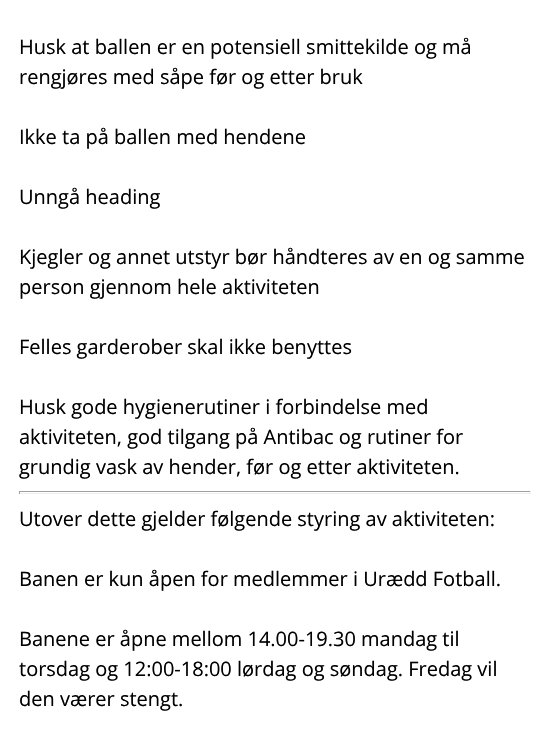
static SkFont makeFont(const char* family, int weight, float size, bool italic = false) {
  SkFontStyle style(weight, SkFontStyle::kNormal_Width,
    italic ? SkFontStyle::kItalic_Slant : SkFontStyle::kUpright_Slant);
  SkFont result(fontMgr->matchFamilyStyle(family, style), size);
  result.setSubpixel(true);
  return result;
}

static void text(SkCanvas* c, const char* s, float x, float y, const SkFont& font, SkColor color) {
  SkPaint ink(SkColor4f::FromColor(color));
  ink.setAntiAlias(true);
  c->drawString(s, x, y, font, ink);
}

static void box(SkCanvas* c, float l, float t, float r, float b, SkColor color) {
  SkPaint ink(SkColor4f::FromColor(color));
  ink.setAntiAlias(true);
  c->drawRect(SkRect::MakeLTRB(l, t, r, b), ink);
}

void draw(SkCanvas* c) {
  SkPaint paint;
  paint.setAntiAlias(true);
  c->clear(0xffffffff);
  SkFont face1 = makeFont("Open Sans", 400, 20);
  text(c, "Husk at ballen er en potensiell smittekilde og må", 19, 54, face1, 0xff000000);
  text(c, "rengjøres med såpe før og etter bruk", 19, 84, face1, 0xff000000);
  text(c, "Ikke ta på ballen med hendene", 19, 144, face1, 0xff000000);
  text(c, "Unngå heading", 19, 204, face1, 0xff000000);
  text(c, "Kjegler og annet utstyr bør håndteres av en og samme", 19, 264, face1, 0xff000000);
  text(c, "person gjennom hele aktiviteten", 19, 294, face1, 0xff000000);
  text(c, "Felles garderober skal ikke benyttes", 19, 354, face1, 0xff000000);
  text(c, "Husk gode hygienerutiner i forbindelse med", 19, 414, face1, 0xff000000);
  text(c, "aktiviteten, god tilgang på Antibac og rutiner for", 19, 444, face1, 0xff000000);
  text(c, "grundig vask av hender, før og etter aktiviteten.", 19, 474, face1, 0xff000000);
  box(c, 19, 491, 531, 492, 0xff9f9f9f);
  box(c, 530, 491, 531, 494, 0xffeeeeee);
  box(c, 19, 493, 531, 494, 0xffeeeeee);
  box(c, 19, 491, 20, 494, 0xff9f9f9f);
  text(c, "Utover dette gjelder følgende styring av aktiviteten:", 19, 526, face1, 0xff000000);
  text(c, "Banen er kun åpen for medlemmer i Urædd Fotball.", 19, 586, face1, 0xff000000);
  text(c, "Banene er åpne mellom 14.00-19.30 mandag til", 19, 646, face1, 0xff000000);
  text(c, "torsdag og 12:00-18:00 lørdag og søndag. Fredag vil", 19, 676, face1, 0xff000000);
  text(c, "den værer stengt.", 19, 706, face1, 0xff000000);
}
